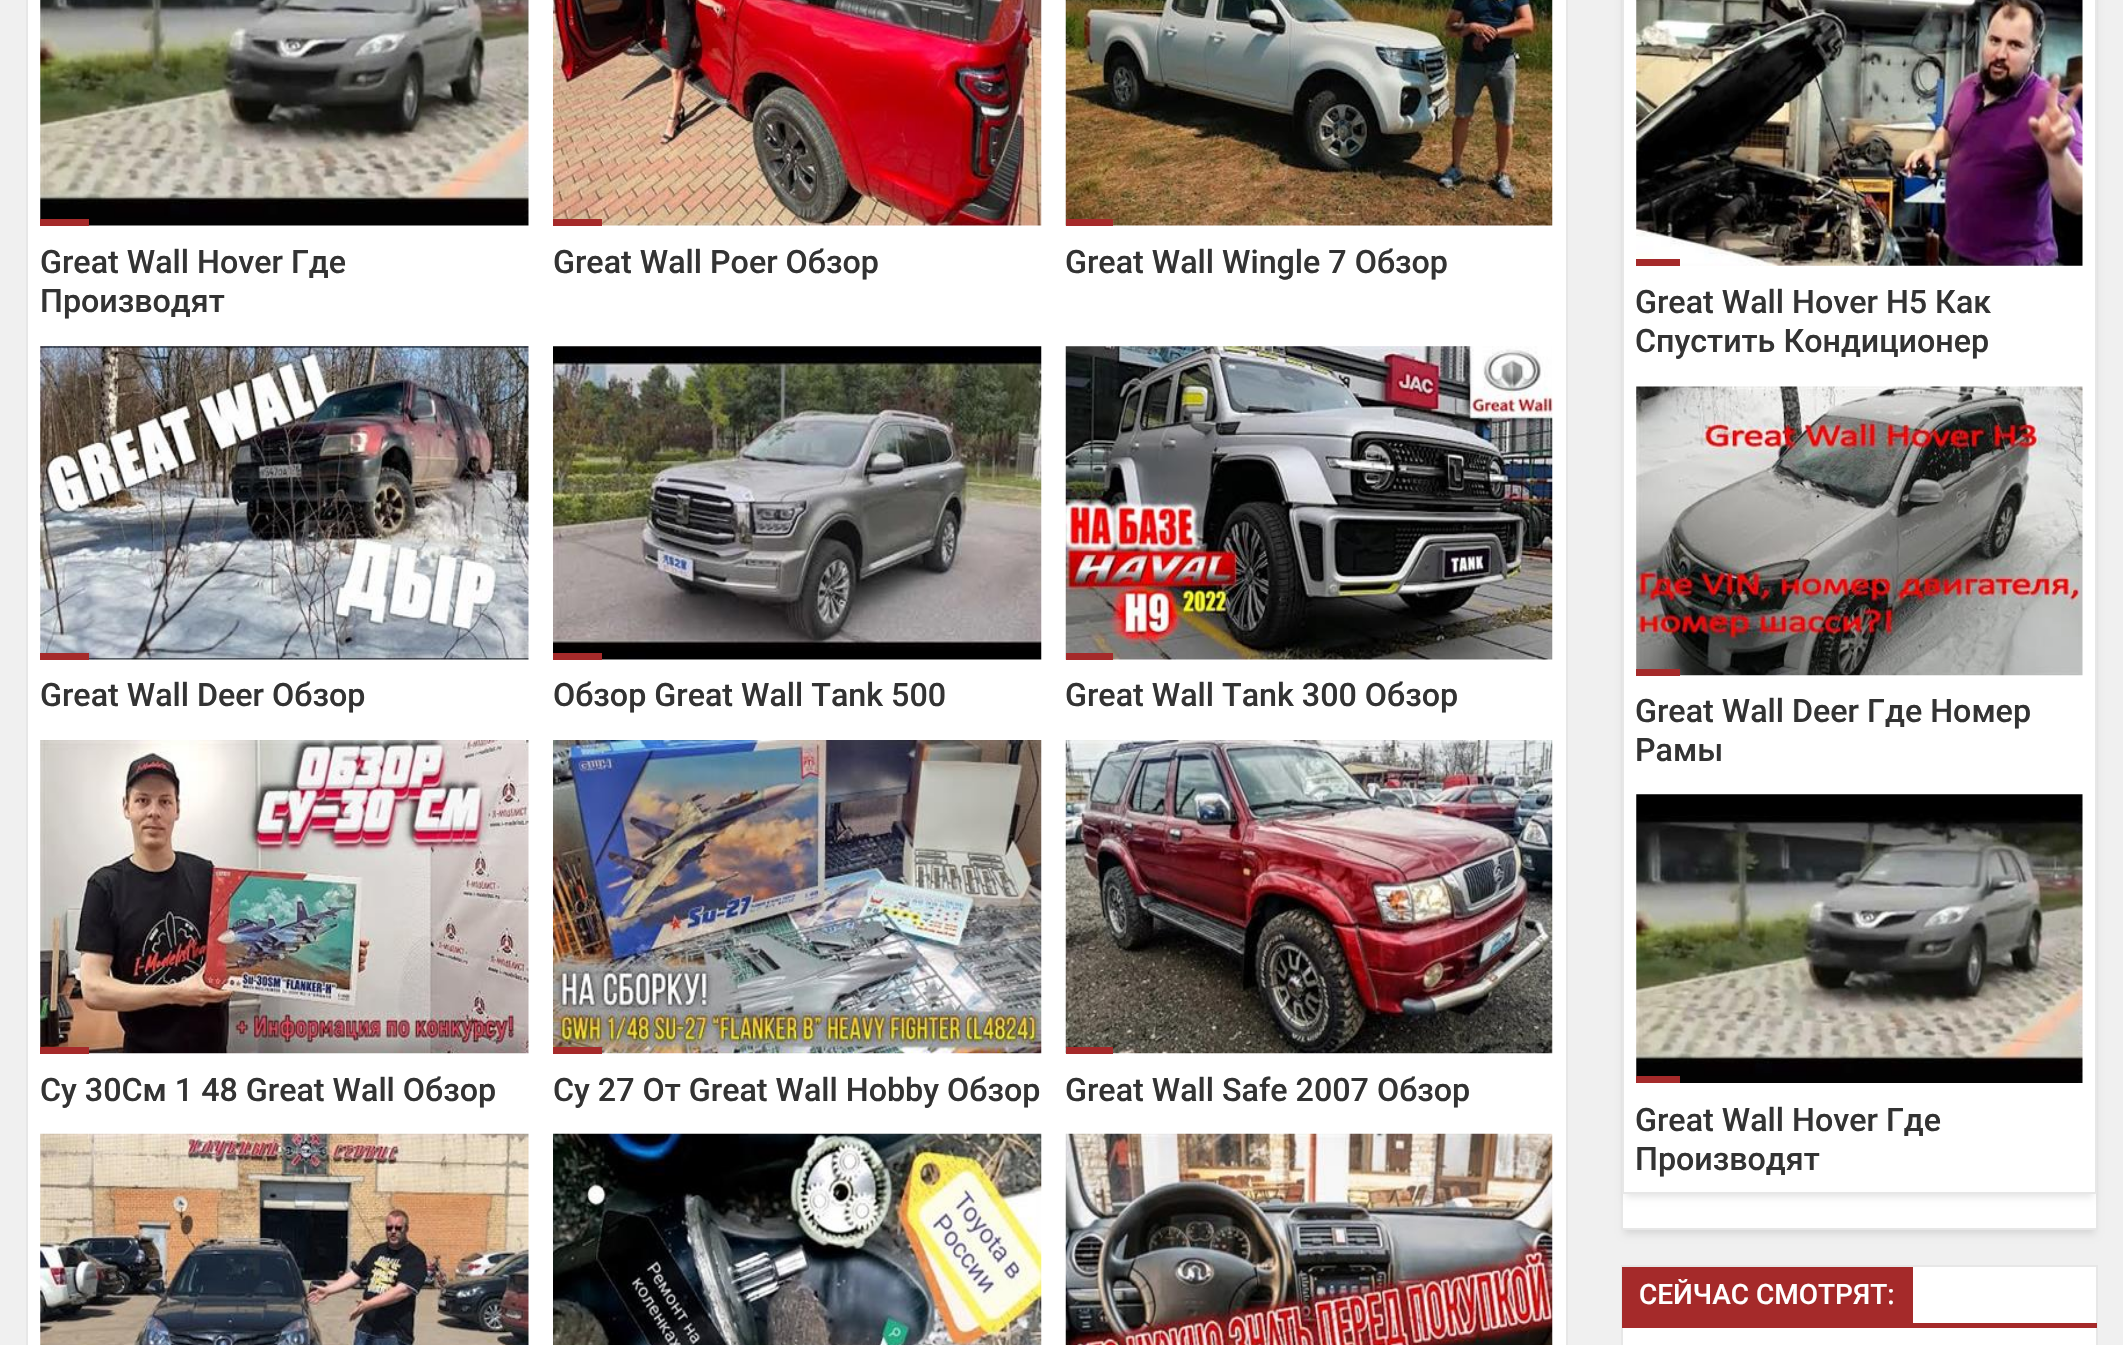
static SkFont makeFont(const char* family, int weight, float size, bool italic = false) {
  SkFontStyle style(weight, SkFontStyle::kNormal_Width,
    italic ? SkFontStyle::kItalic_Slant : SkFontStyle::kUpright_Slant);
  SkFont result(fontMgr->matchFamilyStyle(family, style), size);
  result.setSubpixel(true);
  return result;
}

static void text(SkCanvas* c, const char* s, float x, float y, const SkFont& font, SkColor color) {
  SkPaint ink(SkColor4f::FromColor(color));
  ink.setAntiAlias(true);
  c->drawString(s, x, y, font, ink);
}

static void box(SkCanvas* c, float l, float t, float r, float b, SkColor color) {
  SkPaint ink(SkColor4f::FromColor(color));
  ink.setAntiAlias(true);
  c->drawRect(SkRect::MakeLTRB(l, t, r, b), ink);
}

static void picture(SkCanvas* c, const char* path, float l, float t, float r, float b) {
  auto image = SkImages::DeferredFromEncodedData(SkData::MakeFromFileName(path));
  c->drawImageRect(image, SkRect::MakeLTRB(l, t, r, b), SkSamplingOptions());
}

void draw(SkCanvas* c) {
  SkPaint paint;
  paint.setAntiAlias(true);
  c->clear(0xfff0f0f0);
  paint.setColor(0xffffffff);
  c->drawRect(SkRect::MakeLTRB(27, -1, 1567, 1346), paint);
  paint.setStyle(SkPaint::kStroke_Style);
  paint.setStrokeWidth(2);
  paint.setColor(0xffe7e7e7);
  c->drawRect(SkRect::MakeLTRB(27, -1, 1567, 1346), paint);
  picture(c, "img_01.png", 40, 0, 529, 226);
  box(c, 40, 219, 89, 226, 0xffa52a2a);
  SkFont face1 = makeFont("Roboto", 500, 32.25f);
  text(c, "Great Wall Hover Где", 40, 273, face1, 0xff333333);
  text(c, "Производят", 40, 312, face1, 0xff333333);
  picture(c, "img_02.png", 553, 0, 1042, 226);
  box(c, 553, 219, 602, 226, 0xffa52a2a);
  text(c, "Great Wall Poer Обзор", 553, 273, face1, 0xff333333);
  picture(c, "img_03.png", 1065, 0, 1553, 226);
  box(c, 1066, 219, 1113, 226, 0xffa52a2a);
  text(c, "Great Wall Wingle 7 Обзор", 1065, 273, face1, 0xff333333);
  picture(c, "img_04.png", 40, 346, 529, 660);
  box(c, 40, 653, 89, 660, 0xffa52a2a);
  text(c, "Great Wall Deer Обзор", 40, 706, face1, 0xff333333);
  picture(c, "img_05.png", 553, 346, 1042, 660);
  box(c, 553, 653, 602, 660, 0xffa52a2a);
  text(c, "Обзор Great Wall Tank 500", 553, 706, face1, 0xff333333);
  picture(c, "img_06.png", 1065, 346, 1553, 660);
  box(c, 1066, 653, 1113, 660, 0xffa52a2a);
  text(c, "Great Wall Tank 300 Обзор", 1065, 706, face1, 0xff333333);
  picture(c, "img_07.png", 40, 740, 529, 1054);
  box(c, 40, 1047, 89, 1054, 0xffa52a2a);
  text(c, "Су 30См 1 48 Great Wall Обзор", 40, 1101, face1, 0xff333333);
  picture(c, "img_08.png", 553, 740, 1042, 1054);
  box(c, 553, 1047, 602, 1054, 0xffa52a2a);
  text(c, "Су 27 От Great Wall Hobby Обзор", 553, 1101, face1, 0xff333333);
  picture(c, "img_09.png", 1065, 740, 1553, 1054);
  box(c, 1066, 1047, 1113, 1054, 0xffa52a2a);
  text(c, "Great Wall Safe 2007 Обзор", 1065, 1101, face1, 0xff333333);
  picture(c, "img_10.png", 40, 1133, 529, 1345);
  picture(c, "img_11.png", 553, 1133, 1042, 1345);
  picture(c, "img_12.png", 1065, 1133, 1553, 1345);
  paint.setStyle(SkPaint::kFill_Style);
  paint.setColor(0x1a000000);
  paint.setMaskFilter(SkMaskFilter::MakeBlur(kNormal_SkBlurStyle, 3.5f));
  c->drawRect(SkRect::MakeLTRB(1624, -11, 2095, 1234), paint);
  paint.setMaskFilter(nullptr);
  box(c, 1623, 1194, 2096, 1228, 0xffffffff);
  paint.setStyle(SkPaint::kStroke_Style);
  paint.setColor(0xffe7e7e7);
  c->drawRect(SkRect::MakeLTRB(1622, -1, 2097, 1229), paint);
  paint.setStyle(SkPaint::kFill_Style);
  paint.setColor(0x1a000000);
  paint.setMaskFilter(SkMaskFilter::MakeBlur(kNormal_SkBlurStyle, 3.5f));
  c->drawRect(SkRect::MakeLTRB(1626, -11, 2093, 1197), paint);
  paint.setMaskFilter(nullptr);
  paint.setColor(0xffffffff);
  c->drawRect(SkRect::MakeLTRB(1623, -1, 2096, 1193), paint);
  paint.setStyle(SkPaint::kStroke_Style);
  paint.setColor(0xffe7e7e7);
  c->drawRect(SkRect::MakeLTRB(1623, -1, 2096, 1193), paint);
  picture(c, "img_13.png", 1636, 0, 2083, 266);
  box(c, 1636, 259, 1680, 266, 0xffa52a2a);
  text(c, "Great Wall Hover H5 Как", 1635, 313, face1, 0xff333333);
  text(c, "Спустить Кондиционер", 1635, 352, face1, 0xff333333);
  picture(c, "img_14.png", 1636, 386, 2083, 676);
  box(c, 1636, 669, 1680, 676, 0xffa52a2a);
  text(c, "Great Wall Deer Где Номер", 1635, 722, face1, 0xff333333);
  text(c, "Рамы", 1635, 761, face1, 0xff333333);
  picture(c, "img_15.png", 1636, 794, 2083, 1083);
  box(c, 1636, 1076, 1680, 1083, 0xffa52a2a);
  text(c, "Great Wall Hover Где", 1635, 1131, face1, 0xff333333);
  text(c, "Производят", 1635, 1170, face1, 0xff333333);
  paint.setStyle(SkPaint::kFill_Style);
  paint.setColor(0xffffffff);
  c->drawRect(SkRect::MakeLTRB(1622, 1266, 2097, 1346), paint);
  paint.setStyle(SkPaint::kStroke_Style);
  paint.setColor(0xffe7e7e7);
  c->drawRect(SkRect::MakeLTRB(1622, 1266, 2097, 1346), paint);
  box(c, 1622, 1323, 2097, 1328, 0xffa52a2a);
  box(c, 1622, 1267, 1913, 1323, 0xffa52a2a);
  SkFont face2 = makeFont("Roboto", 500, 28);
  text(c, "СЕЙЧАС СМОТРЯТ:", 1639, 1304, face2, 0xffffffff);
}
